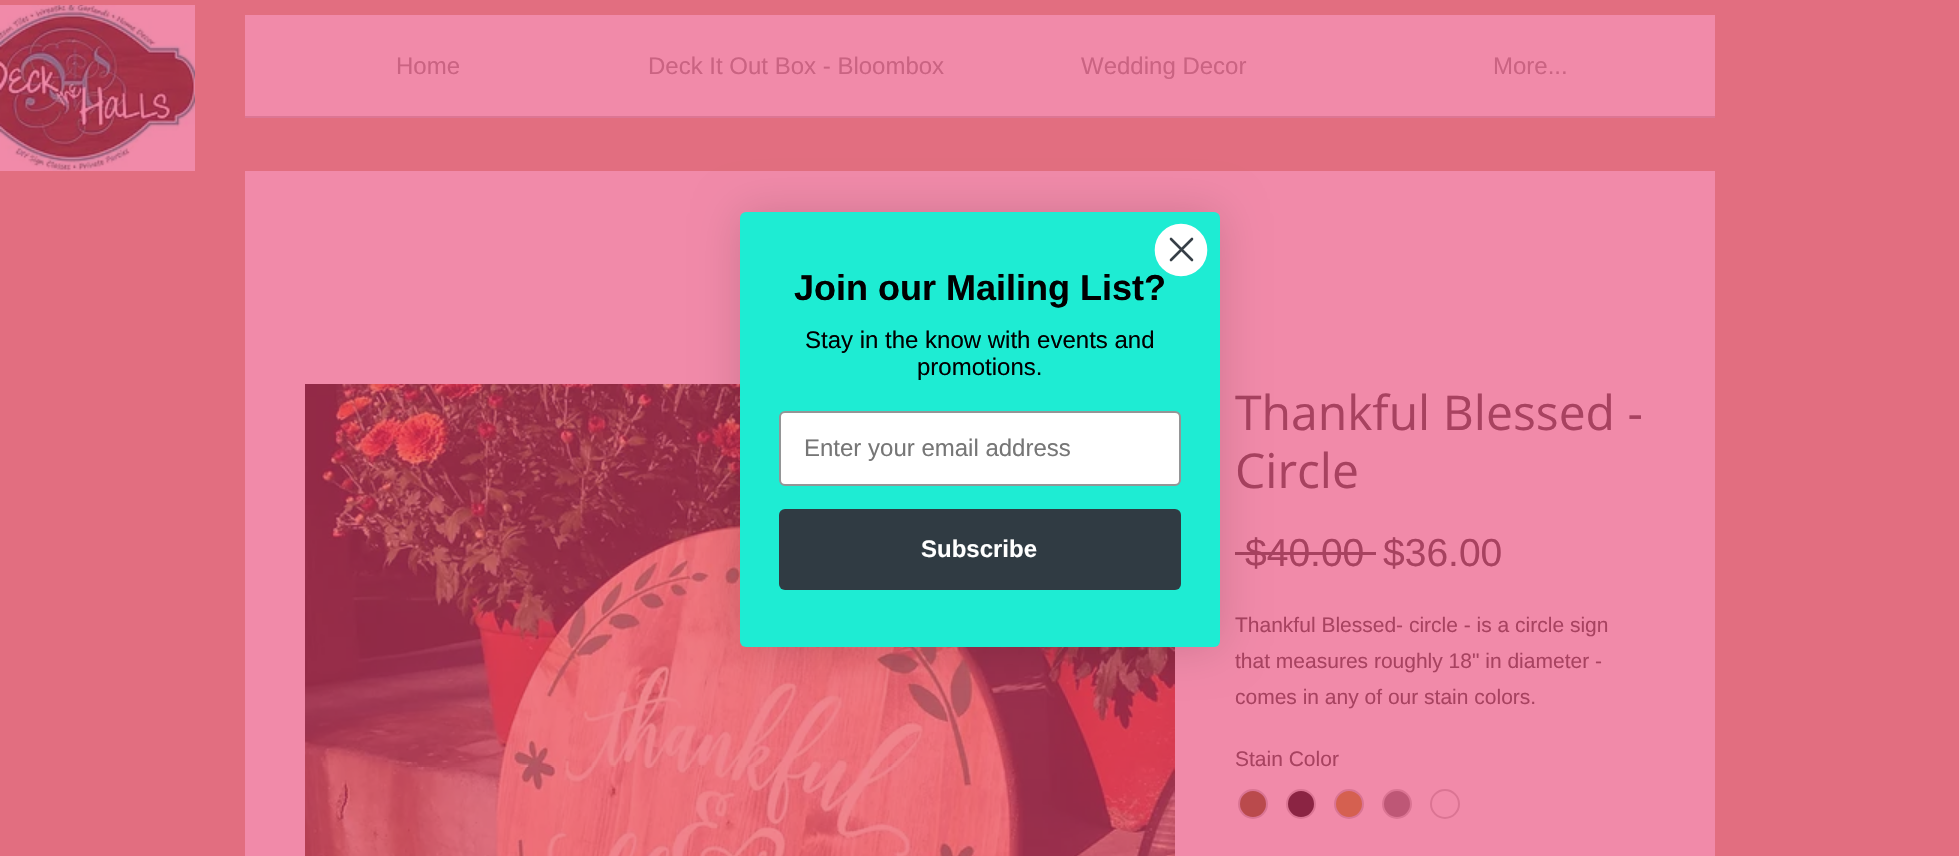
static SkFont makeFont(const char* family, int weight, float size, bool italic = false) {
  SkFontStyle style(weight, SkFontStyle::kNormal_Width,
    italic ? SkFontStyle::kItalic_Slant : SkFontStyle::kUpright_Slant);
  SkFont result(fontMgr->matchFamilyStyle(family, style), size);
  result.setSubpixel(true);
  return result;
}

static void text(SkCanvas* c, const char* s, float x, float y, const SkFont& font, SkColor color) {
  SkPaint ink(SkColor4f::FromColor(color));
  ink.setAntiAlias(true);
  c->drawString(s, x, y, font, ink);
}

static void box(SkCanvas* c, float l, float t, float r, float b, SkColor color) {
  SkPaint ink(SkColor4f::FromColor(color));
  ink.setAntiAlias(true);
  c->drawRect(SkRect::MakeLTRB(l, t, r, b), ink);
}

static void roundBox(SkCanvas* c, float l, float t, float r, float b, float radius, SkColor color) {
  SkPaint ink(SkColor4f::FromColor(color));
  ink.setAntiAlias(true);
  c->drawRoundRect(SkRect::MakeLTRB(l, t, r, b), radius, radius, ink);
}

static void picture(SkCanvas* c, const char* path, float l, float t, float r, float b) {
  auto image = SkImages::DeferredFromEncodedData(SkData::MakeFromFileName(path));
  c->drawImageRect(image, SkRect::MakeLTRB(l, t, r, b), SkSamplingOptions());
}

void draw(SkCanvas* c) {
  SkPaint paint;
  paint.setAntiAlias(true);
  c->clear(0xffe26e80);
  picture(c, "img_01.png", 0, 5, 195, 171);
  box(c, 245, 15, 1715, 116, 0xfff18aa9);
  box(c, 245, 116, 1715, 118, 0xffdc7694);
  SkFont face1 = makeFont("Liberation Sans", 400, 24);
  text(c, "Home", 396, 74, face1, 0xffca6382);
  text(c, "Deck It Out Box - Bloombox", 648, 74, face1, 0xffca6382);
  text(c, "Wedding Decor", 1081, 74, face1, 0xffca6382);
  text(c, "More...", 1493, 74, face1, 0xffca6382);
  box(c, 245, 171, 1715, 856, 0xfff18aa9);
  picture(c, "img_02.png", 305, 384, 1175, 856);
  SkFont face2 = makeFont("Open Sans", 400, 48);
  text(c, "Thankful Blessed -", 1235, 430, face2, 0xffa84260);
  text(c, "Circle", 1235, 488, face2, 0xffa84260);
  SkFont face3 = makeFont("Liberation Sans", 400, 39);
  text(c, "$40.00", 1245, 566, face3, 0xffa84260);
  box(c, 1235, 552, 1376, 555, 0xffa84260);
  text(c, "$36.00", 1383, 566, face3, 0xffa84260);
  SkFont face4 = makeFont("Liberation Sans", 400, 21);
  text(c, "Thankful Blessed- circle - is a circle sign", 1235, 632, face4, 0xffa84260);
  text(c, "that measures roughly 18\" in diameter -", 1235, 668, face4, 0xffa84260);
  text(c, "comes in any of our stain colors.", 1235, 704, face4, 0xffa84260);
  text(c, "Stain Color", 1235, 766, face4, 0xffa84260);
  paint.setColor(0xffba4a4c);
  c->drawCircle(1253, 804, 14, paint);
  paint.setStyle(SkPaint::kStroke_Style);
  paint.setStrokeWidth(2);
  paint.setColor(0xffdb7493);
  c->drawCircle(1253, 804, 14, paint);
  paint.setStyle(SkPaint::kFill_Style);
  paint.setColor(0xff8b2443);
  c->drawCircle(1301, 804, 14, paint);
  paint.setStyle(SkPaint::kStroke_Style);
  paint.setColor(0xffdb7493);
  c->drawCircle(1301, 804, 14, paint);
  paint.setStyle(SkPaint::kFill_Style);
  paint.setColor(0xffd56050);
  c->drawCircle(1349, 804, 14, paint);
  paint.setStyle(SkPaint::kStroke_Style);
  paint.setColor(0xffdb7493);
  c->drawCircle(1349, 804, 14, paint);
  paint.setStyle(SkPaint::kFill_Style);
  paint.setColor(0xffbe5776);
  c->drawCircle(1397, 804, 14, paint);
  paint.setStyle(SkPaint::kStroke_Style);
  paint.setColor(0xffdb7493);
  c->drawCircle(1397, 804, 14, paint);
  c->drawCircle(1445, 804, 14, paint);
  paint.setStyle(SkPaint::kFill_Style);
  paint.setColor(0x26000000);
  paint.setMaskFilter(SkMaskFilter::MakeBlur(kNormal_SkBlurStyle, 22.5f));
  c->drawRoundRect(SkRect::MakeLTRB(740, 212, 1220, 647), 6, 6, paint);
  paint.setMaskFilter(nullptr);
  roundBox(c, 740, 212, 1220, 647, 6, 0xff1eecd3);
  SkFont face5 = makeFont("Liberation Sans", 700, 36);
  text(c, "Join our Mailing List?", 794, 300, face5, 0xff000000);
  paint.setColor(0xffffffff);
  c->drawCircle(1181, 250, 25, paint);
  paint.setStyle(SkPaint::kStroke_Style);
  paint.setStrokeWidth(2.6f);
  c->drawCircle(1181, 250, 25, paint);
  paint.setStrokeCap(SkPaint::kRound_Cap);
  paint.setStrokeJoin(SkPaint::kRound_Join);
  paint.setColor(0xff373f47);
  c->drawPath(SkPathBuilder().moveTo(1171, 239).lineTo(1192, 260).moveTo(1171, 260).lineTo(1192, 239).close().detach(), paint);
  text(c, "Stay in the know with events and", 805, 348, face1, 0xff000000);
  text(c, "promotions.", 917, 375, face1, 0xff000000);
  paint.setStyle(SkPaint::kFill_Style);
  paint.setColor(0xffffffff);
  c->drawRoundRect(SkRect::MakeLTRB(780, 412, 1180, 485), 5, 5, paint);
  paint.setStyle(SkPaint::kStroke_Style);
  paint.setStrokeWidth(2);
  paint.setStrokeCap(SkPaint::kButt_Cap);
  paint.setStrokeJoin(SkPaint::kMiter_Join);
  paint.setColor(0xff949596);
  c->drawRoundRect(SkRect::MakeLTRB(780, 412, 1180, 485), 5, 5, paint);
  text(c, "Enter your email address", 804, 456, face1, 0xff767676);
  roundBox(c, 779, 509, 1181, 590, 6, 0xff303b43);
  SkFont face6 = makeFont("Liberation Sans", 700, 24);
  text(c, "Subscribe", 921, 557, face6, 0xffffffff);
}
